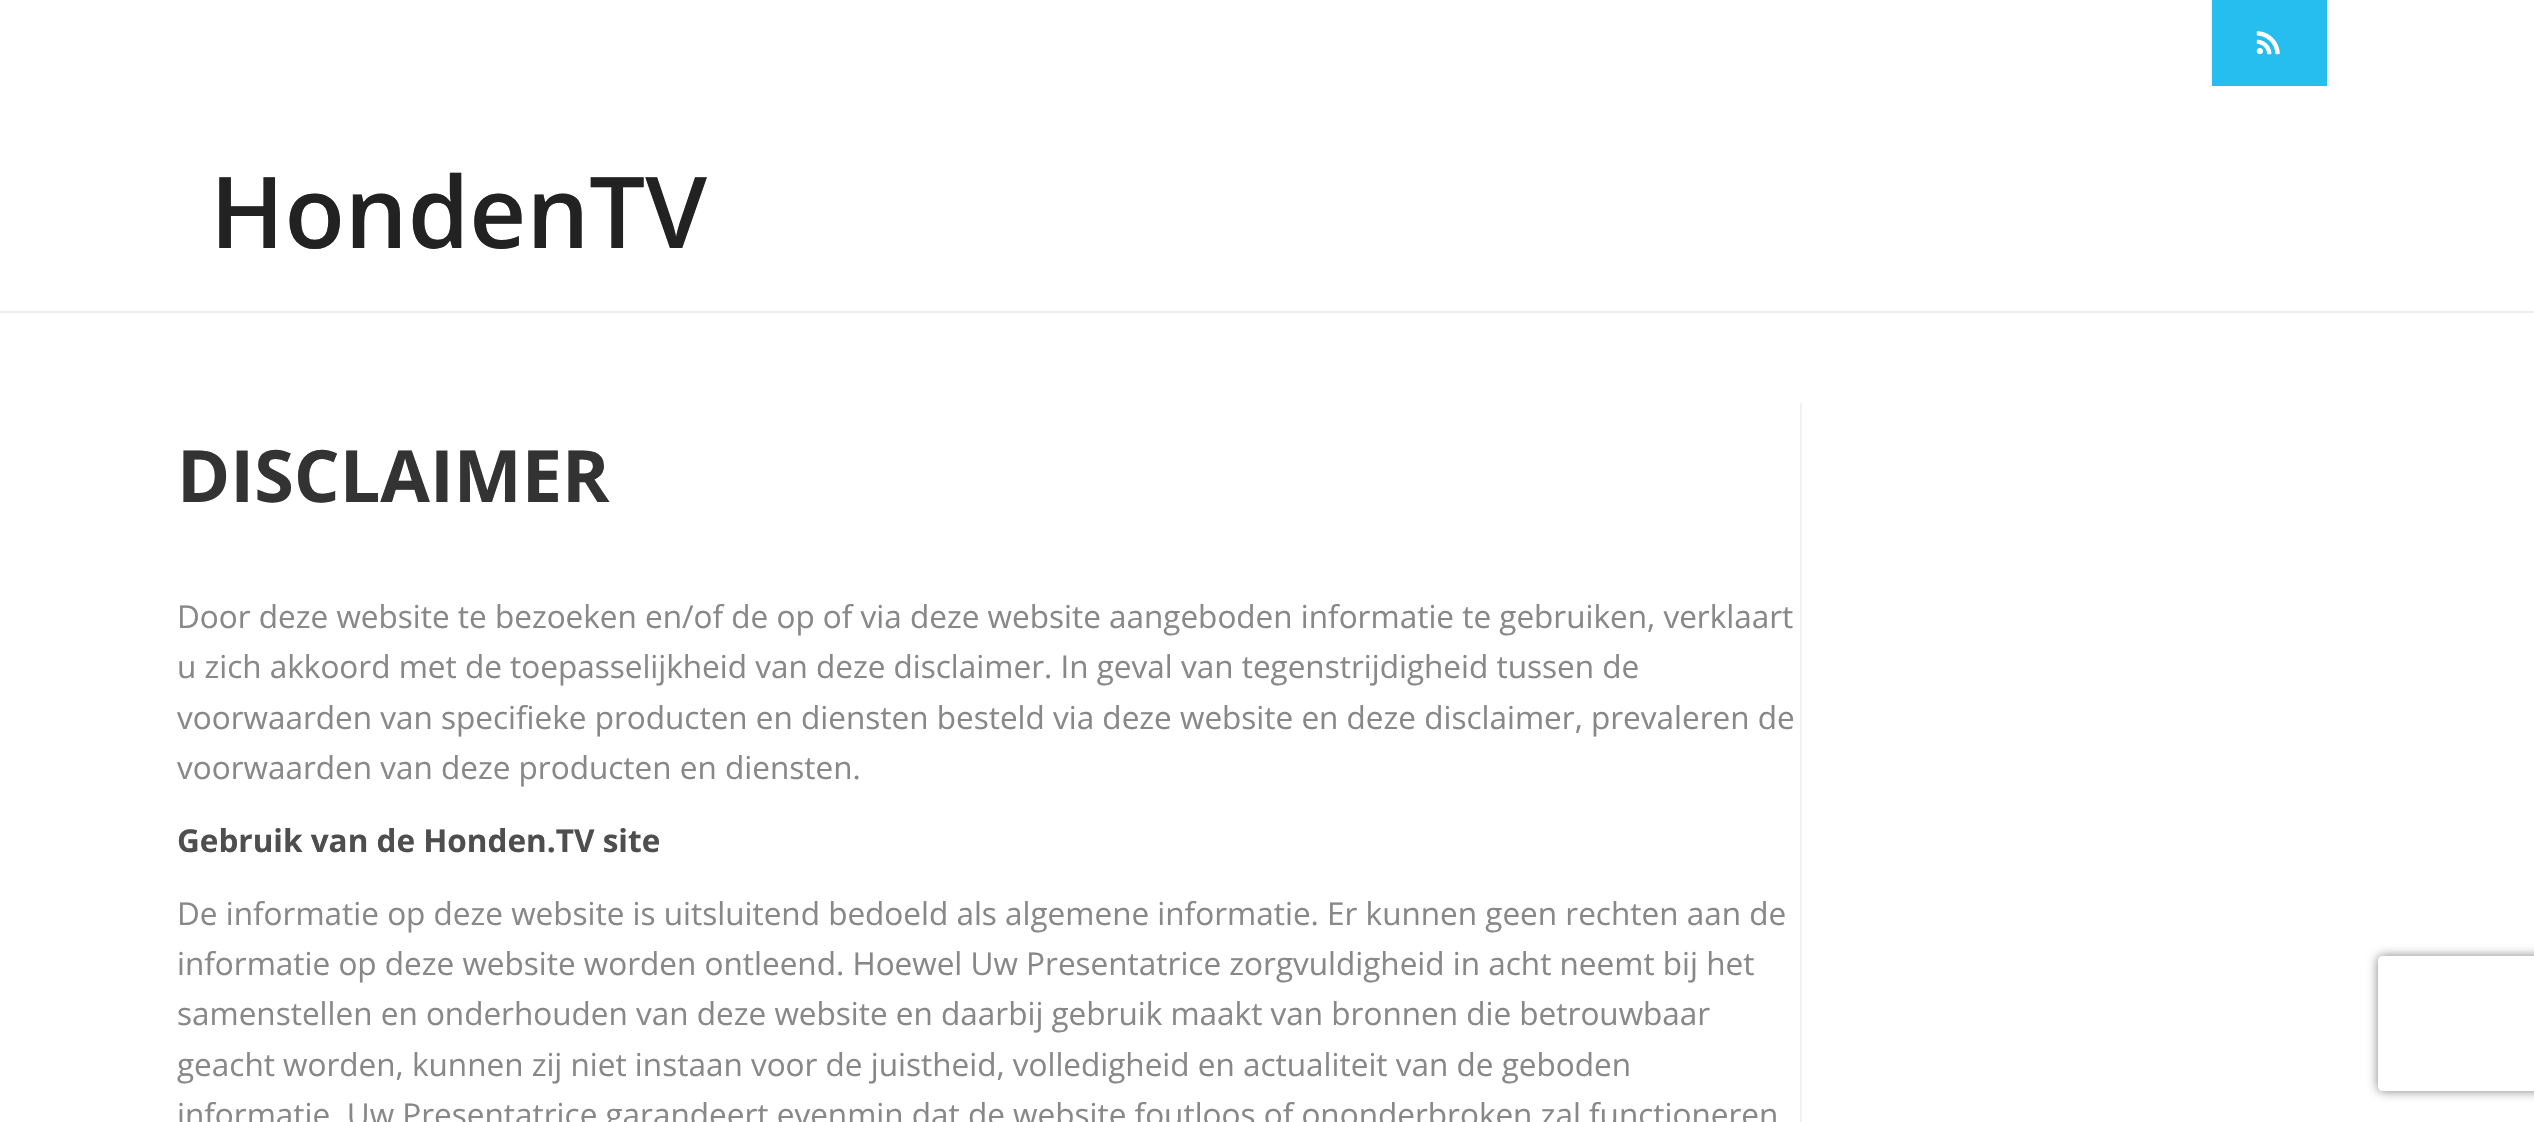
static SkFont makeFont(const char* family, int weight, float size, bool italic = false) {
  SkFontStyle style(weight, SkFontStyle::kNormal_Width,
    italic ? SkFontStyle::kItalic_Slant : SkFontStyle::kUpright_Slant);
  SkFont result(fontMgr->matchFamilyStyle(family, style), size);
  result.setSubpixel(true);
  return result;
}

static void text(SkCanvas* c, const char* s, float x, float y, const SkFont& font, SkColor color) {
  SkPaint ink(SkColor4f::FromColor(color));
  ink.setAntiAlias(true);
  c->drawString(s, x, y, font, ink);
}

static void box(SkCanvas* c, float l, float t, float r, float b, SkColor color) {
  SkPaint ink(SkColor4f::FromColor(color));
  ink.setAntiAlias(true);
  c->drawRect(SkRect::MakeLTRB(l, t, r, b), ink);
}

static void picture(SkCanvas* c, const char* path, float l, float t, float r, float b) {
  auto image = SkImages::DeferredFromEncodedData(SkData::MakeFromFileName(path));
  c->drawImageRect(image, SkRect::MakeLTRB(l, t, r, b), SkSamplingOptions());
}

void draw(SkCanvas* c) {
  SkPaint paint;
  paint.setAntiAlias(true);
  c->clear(0xffffffff);
  box(c, 2212, 0, 2327, 86, 0xff26bdef);
  picture(c, "img_01.png", 2256, 31, 2280, 55);
  SkFont face1 = makeFont("Open Sans", 600, 99);
  text(c, "HondenTV", 210, 248, face1, 0xff222222);
  box(c, 0, 311, 2534, 313, 0xffeeeeee);
  box(c, 1800, 403, 1802, 1122, 0xfff1f1f1);
  SkFont face2 = makeFont("Open Sans", 700, 72);
  text(c, "DISCLAIMER", 177, 502, face2, 0xff333333);
  SkFont face3 = makeFont("Open Sans", 400, 31.5f);
  text(c, "Door deze website te bezoeken en/of de op of via deze website aangeboden informatie te gebruiken, verklaart", 177, 628, face3, 0xff888888);
  text(c, "u zich akkoord met de toepasselijkheid van deze disclaimer. In geval van tegenstrijdigheid tussen de", 177, 678, face3, 0xff888888);
  text(c, "voorwaarden van specifieke producten en diensten besteld via deze website en deze disclaimer, prevaleren de", 177, 729, face3, 0xff888888);
  text(c, "voorwaarden van deze producten en diensten.", 177, 779, face3, 0xff888888);
  SkFont face4 = makeFont("Open Sans", 700, 31.5f);
  text(c, "Gebruik van de Honden.TV site", 177, 852, face4, 0xff4e4e4e);
  text(c, "De informatie op deze website is uitsluitend bedoeld als algemene informatie. Er kunnen geen rechten aan de", 177, 925, face3, 0xff888888);
  text(c, "informatie op deze website worden ontleend. Hoewel Uw Presentatrice zorgvuldigheid in acht neemt bij het", 177, 975, face3, 0xff888888);
  text(c, "samenstellen en onderhouden van deze website en daarbij gebruik maakt van bronnen die betrouwbaar", 177, 1025, face3, 0xff888888);
  text(c, "geacht worden, kunnen zij niet instaan voor de juistheid, volledigheid en actualiteit van de geboden", 177, 1076, face3, 0xff888888);
  text(c, "informatie. Uw Presentatrice garandeert evenmin dat de website foutloos of ononderbroken zal functioneren", 177, 1126, face3, 0xff888888);
  c->save();
  c->clipPath(SkPathBuilder(SkPathFillType::kEvenOdd).moveTo(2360, 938).lineTo(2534, 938).lineTo(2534, 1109).lineTo(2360, 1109).close().moveTo(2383, 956).lineTo(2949, 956).cubicTo(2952, 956, 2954, 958, 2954, 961).lineTo(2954, 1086).cubicTo(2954, 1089, 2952, 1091, 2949, 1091).lineTo(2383, 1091).cubicTo(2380, 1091, 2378, 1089, 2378, 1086).lineTo(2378, 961).cubicTo(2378, 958, 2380, 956, 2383, 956).close().detach(), true);
  paint.setColor(0xff808080);
  paint.setMaskFilter(SkMaskFilter::MakeBlur(kNormal_SkBlurStyle, 5.5f));
  c->drawRoundRect(SkRect::MakeLTRB(2378, 956, 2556, 1091), 5, 5, paint);
  paint.setMaskFilter(nullptr);
  c->restore();
}
